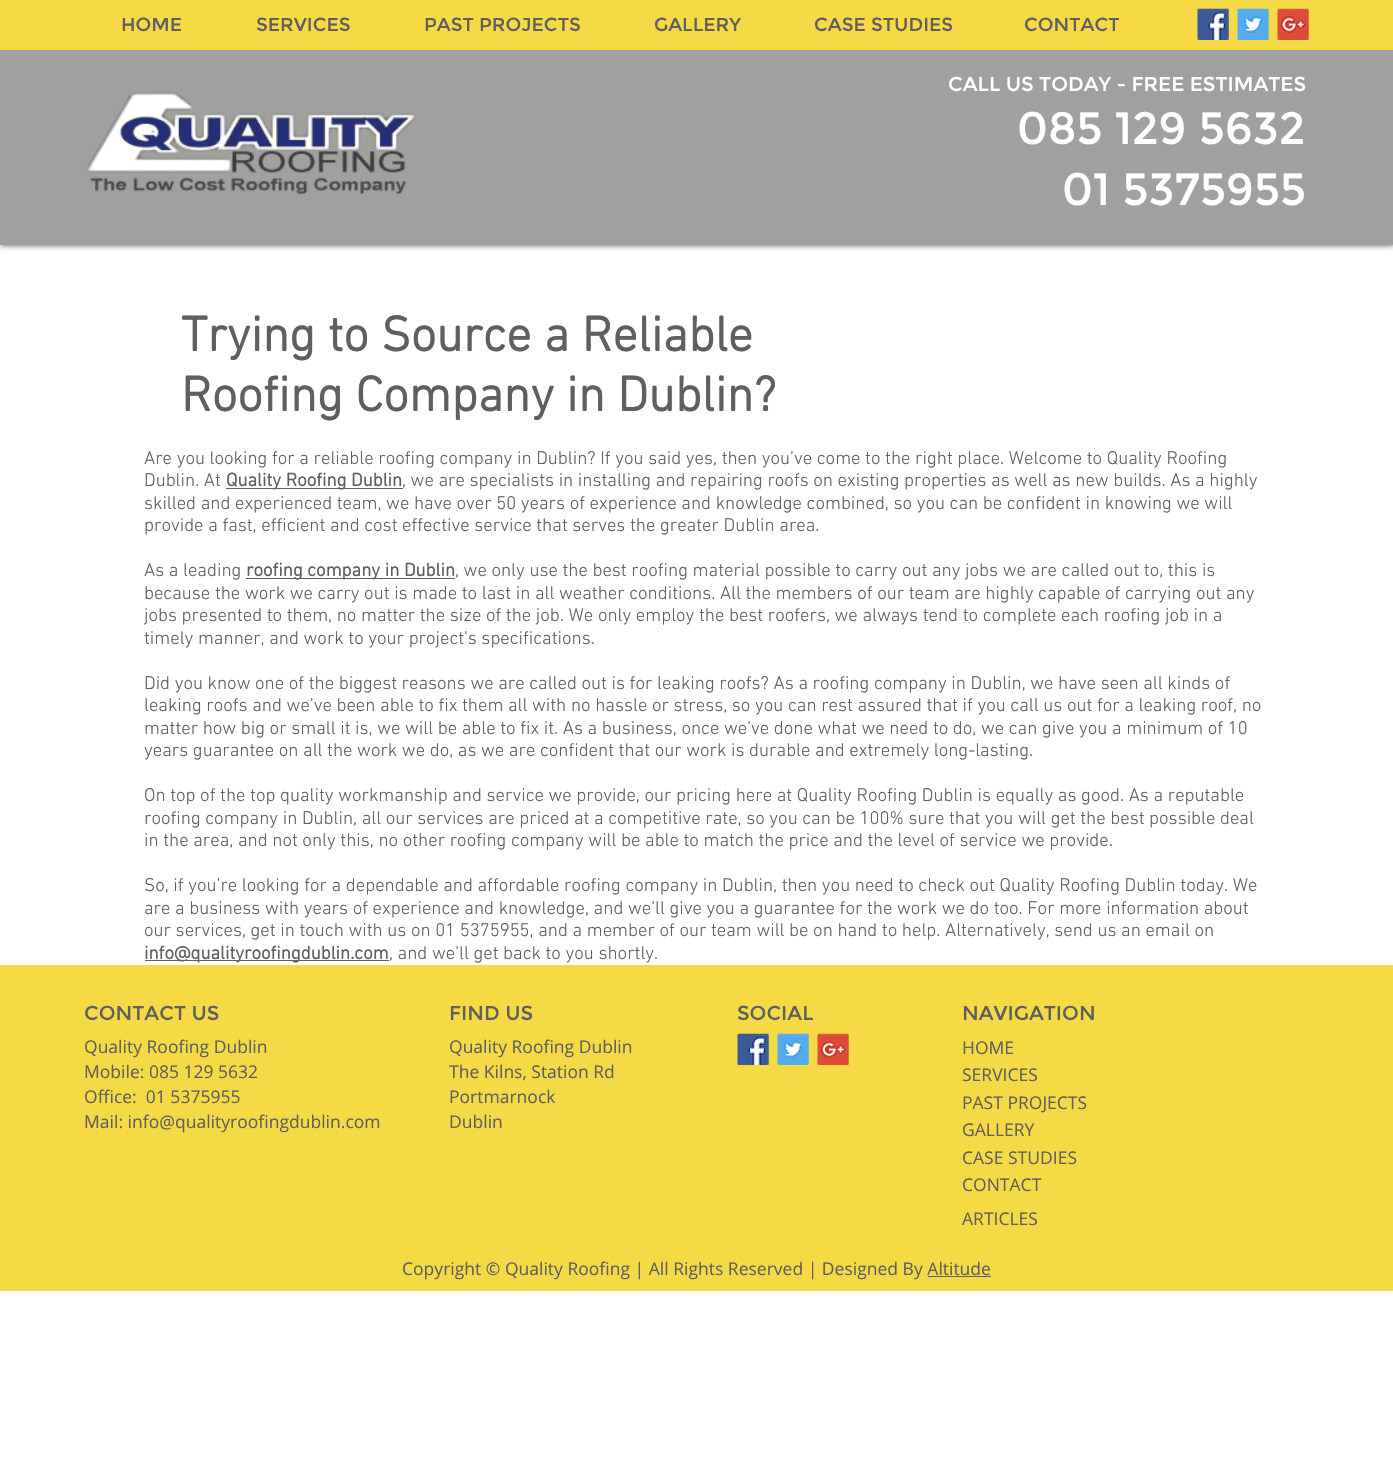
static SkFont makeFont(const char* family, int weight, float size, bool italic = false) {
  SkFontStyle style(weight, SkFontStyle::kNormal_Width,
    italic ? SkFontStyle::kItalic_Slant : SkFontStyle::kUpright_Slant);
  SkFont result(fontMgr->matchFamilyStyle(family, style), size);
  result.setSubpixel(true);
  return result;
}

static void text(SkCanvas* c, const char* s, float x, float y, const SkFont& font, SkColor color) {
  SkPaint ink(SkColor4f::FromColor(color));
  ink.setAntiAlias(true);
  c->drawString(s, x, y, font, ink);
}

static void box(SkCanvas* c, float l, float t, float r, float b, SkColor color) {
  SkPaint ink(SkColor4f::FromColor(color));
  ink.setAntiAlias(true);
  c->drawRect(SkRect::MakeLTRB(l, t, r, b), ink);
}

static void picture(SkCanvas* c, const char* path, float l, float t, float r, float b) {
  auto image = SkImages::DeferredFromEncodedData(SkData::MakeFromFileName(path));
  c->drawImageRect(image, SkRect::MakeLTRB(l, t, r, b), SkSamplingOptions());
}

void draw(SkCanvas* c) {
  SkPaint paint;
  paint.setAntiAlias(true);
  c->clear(0xffffffff);
  paint.setColor(0xb3000000);
  paint.setMaskFilter(SkMaskFilter::MakeBlur(kNormal_SkBlurStyle, 3));
  c->drawRect(SkRect::MakeLTRB(0, 0, 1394, 245), paint);
  paint.setMaskFilter(nullptr);
  box(c, 0, 50, 1393, 245, 0xffa0a09f);
  box(c, 0, 0, 1393, 50, 0xfff5da45);
  SkFont face1 = makeFont("Montserrat", 400, 18.75f);
  text(c, "HOME", 121, 31, face1, 0xff605e5e);
  text(c, "SERVICES", 256, 31, face1, 0xff605e5e);
  text(c, "PAST PROJECTS", 424, 31, face1, 0xff605e5e);
  text(c, "GALLERY", 654, 31, face1, 0xff605e5e);
  text(c, "CASE STUDIES", 814, 31, face1, 0xff605e5e);
  text(c, "CONTACT", 1024, 31, face1, 0xff605e5e);
  picture(c, "img_01.png", 1197, 8, 1229, 40);
  picture(c, "img_02.png", 1237, 8, 1269, 40);
  picture(c, "img_03.png", 1277, 8, 1309, 40);
  SkFont face2 = makeFont("Montserrat", 400, 20);
  text(c, "CALL US TODAY - FREE ESTIMATES", 948, 91, face2, 0xffffffff);
  picture(c, "img_04.png", 86, 92, 416, 194);
  SkFont face3 = makeFont("Montserrat", 400, 45);
  text(c, "085 129 5632", 1017, 144, face3, 0xffffffff);
  text(c, "01 5375955", 1062, 205, face3, 0xffffffff);
  SkFont face4 = makeFont("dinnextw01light", 700, 50);
  text(c, "Trying to Source a Reliable", 181, 351, face4, 0xff605e5e);
  text(c, "Roofing Company in Dublin?", 181, 411, face4, 0xff605e5e);
  SkFont face5 = makeFont("dinnextw01light", 300, 18.75f);
  text(c, "Are you looking for a reliable roofing company in Dublin? If you said yes, then you’ve come to the right place. Welcome to Quality Roofing", 144, 464, face5, 0xff605e5e);
  text(c, "Dublin. At", 144, 486, face5, 0xff605e5e);
  box(c, 226, 488, 403, 489, 0xff605e5e);
  SkFont face6 = makeFont("dinnextw01light", 700, 18.75f);
  text(c, "Quality Roofing Dublin", 226, 486, face6, 0xff605e5e);
  text(c, ", we are specialists in installing and repairing roofs on existing properties as well as new builds. As a highly", 402, 486, face5, 0xff605e5e);
  text(c, "skilled and experienced team, we have over 50 years of experience and knowledge combined, so you can be confident in knowing we will", 144, 509, face5, 0xff605e5e);
  text(c, "provide a fast, efficient and cost effective service that serves the greater Dublin area.", 144, 531, face5, 0xff605e5e);
  text(c, "As a leading", 144, 576, face5, 0xff605e5e);
  box(c, 246, 578, 455, 579, 0xff605e5e);
  text(c, "roofing company in Dublin", 246, 576, face6, 0xff605e5e);
  text(c, ", we only use the best roofing material possible to carry out any jobs we are called out to, this is", 455, 576, face5, 0xff605e5e);
  text(c, "because the work we carry out is made to last in all weather conditions. All the members of our team are highly capable of carrying out any", 144, 599, face5, 0xff605e5e);
  text(c, "jobs presented to them, no matter the size of the job. We only employ the best roofers, we always tend to complete each roofing job in a", 144, 621, face5, 0xff605e5e);
  text(c, "timely manner, and work to your project's specifications.", 144, 644, face5, 0xff605e5e);
  text(c, "Did you know one of the biggest reasons we are called out is for leaking roofs? As a roofing company in Dublin, we have seen all kinds of", 144, 689, face5, 0xff605e5e);
  text(c, "leaking roofs and we’ve been able to fix them all with no hassle or stress, so you can rest assured that if you call us out for a leaking roof, no", 144, 711, face5, 0xff605e5e);
  text(c, "matter how big or small it is, we will be able to fix it. As a business, once we’ve done what we need to do, we can give you a minimum of 10", 144, 734, face5, 0xff605e5e);
  text(c, "years guarantee on all the work we do, as we are confident that our work is durable and extremely long-lasting.", 144, 756, face5, 0xff605e5e);
  text(c, "On top of the top quality workmanship and service we provide, our pricing here at Quality Roofing Dublin is equally as good. As a reputable", 144, 801, face5, 0xff605e5e);
  text(c, "roofing company in Dublin, all our services are priced at a competitive rate, so you can be 100% sure that you will get the best possible deal", 144, 824, face5, 0xff605e5e);
  text(c, "in the area, and not only this, no other roofing company will be able to match the price and the level of service we provide.", 144, 846, face5, 0xff605e5e);
  text(c, "So, if you’re looking for a dependable and affordable roofing company in Dublin, then you need to check out Quality Roofing Dublin today. We", 144, 891, face5, 0xff605e5e);
  text(c, "are a business with years of experience and knowledge, and we’ll give you a guarantee for the work we do too. For more information about", 144, 914, face5, 0xff605e5e);
  text(c, "our services, get in touch with us on 01 5375955, and a member of our team will be on hand to help. Alternatively, send us an email on", 144, 936, face5, 0xff605e5e);
  box(c, 145, 960, 389, 961, 0xff605e5e);
  text(c, "info@qualityroofingdublin.com", 144, 959, face6, 0xff605e5e);
  text(c, ", and we’ll get back to you shortly.", 389, 959, face5, 0xff605e5e);
  box(c, 0, 965, 1393, 1291, 0xfff5da45);
  text(c, "CONTACT US", 84, 1020, face2, 0xff605e5e);
  text(c, "FIND US", 449, 1020, face2, 0xff605e5e);
  text(c, "SOCIAL", 737, 1020, face2, 0xff605e5e);
  text(c, "NAVIGATION", 962, 1020, face2, 0xff605e5e);
  SkFont face7 = makeFont("Open Sans", 400, 17.5f);
  text(c, "Quality Roofing Dublin", 84, 1053, face7, 0xff605e5e);
  text(c, "Mobile: 085 129 5632", 84, 1078, face7, 0xff605e5e);
  text(c, "Office:  01 5375955", 84, 1103, face7, 0xff605e5e);
  text(c, "Mail: info@qualityroofingdublin.com", 84, 1128, face7, 0xff605e5e);
  text(c, "Quality Roofing Dublin", 449, 1053, face7, 0xff605e5e);
  text(c, "The Kilns, Station Rd", 449, 1078, face7, 0xff605e5e);
  text(c, "Portmarnock", 449, 1103, face7, 0xff605e5e);
  text(c, "Dublin", 449, 1128, face7, 0xff605e5e);
  picture(c, "img_01.png", 737, 1033, 769, 1065);
  picture(c, "img_05.png", 777, 1033, 809, 1065);
  picture(c, "img_06.png", 817, 1033, 849, 1065);
  text(c, "HOME", 962, 1054, face7, 0xff605e5e);
  text(c, "SERVICES", 962, 1081, face7, 0xff605e5e);
  text(c, "PAST PROJECTS", 962, 1109, face7, 0xff605e5e);
  text(c, "GALLERY", 962, 1136, face7, 0xff605e5e);
  text(c, "CASE STUDIES", 962, 1164, face7, 0xff605e5e);
  text(c, "CONTACT", 962, 1191, face7, 0xff605e5e);
  text(c, "ARTICLES", 962, 1225, face7, 0xff605e5e);
  text(c, "Copyright © Quality Roofing | All Rights Reserved | Designed By Altitude", 402, 1275, face7, 0xff605e5e);
  box(c, 928, 1276, 991, 1277, 0xff605e5e);
}
